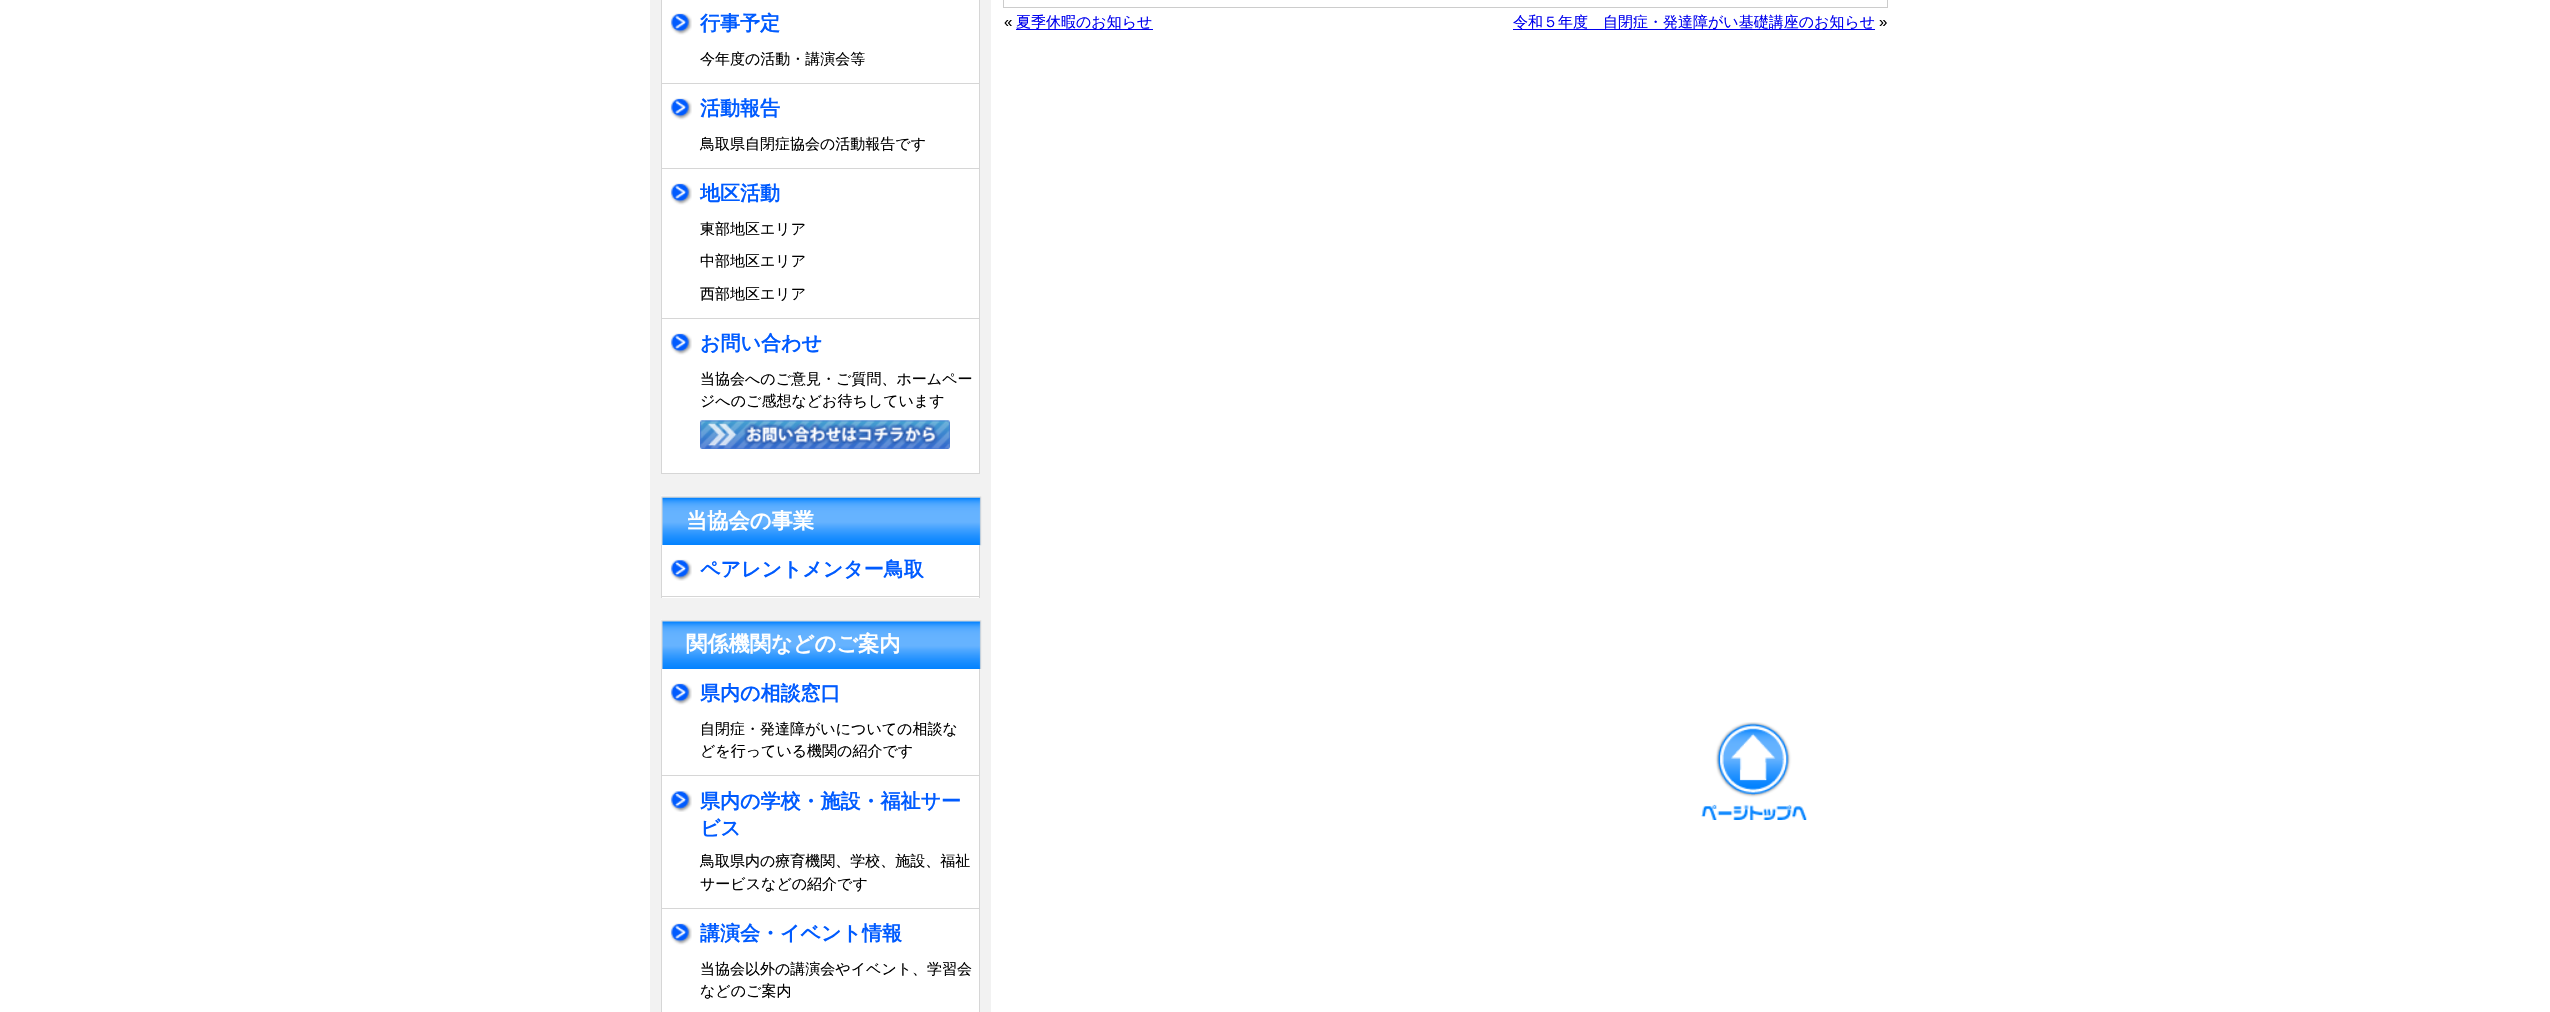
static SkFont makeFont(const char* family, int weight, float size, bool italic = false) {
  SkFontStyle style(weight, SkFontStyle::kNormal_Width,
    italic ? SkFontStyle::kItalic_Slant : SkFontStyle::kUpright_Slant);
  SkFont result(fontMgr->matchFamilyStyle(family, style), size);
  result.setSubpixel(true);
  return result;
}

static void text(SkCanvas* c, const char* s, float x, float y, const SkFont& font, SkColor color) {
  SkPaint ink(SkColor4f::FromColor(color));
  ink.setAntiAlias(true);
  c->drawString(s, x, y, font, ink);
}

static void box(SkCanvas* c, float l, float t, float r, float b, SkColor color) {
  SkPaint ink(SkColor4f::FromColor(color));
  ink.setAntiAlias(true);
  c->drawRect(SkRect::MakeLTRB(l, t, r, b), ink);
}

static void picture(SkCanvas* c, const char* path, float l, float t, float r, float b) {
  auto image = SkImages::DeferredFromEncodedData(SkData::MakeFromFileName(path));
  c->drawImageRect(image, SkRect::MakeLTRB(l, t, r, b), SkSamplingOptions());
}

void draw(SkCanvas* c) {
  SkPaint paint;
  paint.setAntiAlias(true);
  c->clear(0xffffffff);
  box(c, 650, 0, 991, 1012, 0xfff2f2f2);
  box(c, 662, 0, 979, 473, 0xffffffff);
  box(c, 979, 0, 980, 474, 0xffd6d6d6);
  box(c, 661, 83, 980, 84, 0xffd6d6d6);
  box(c, 661, 0, 662, 84, 0xffd6d6d6);
  picture(c, "img_01.png", 670, 13, 692, 35);
  SkFont face1 = makeFont("WenQuanYi Zen Hei", 700, 20);
  text(c, "行事予定", 700, 30, face1, 0xff005bff);
  SkFont face2 = makeFont("WenQuanYi Zen Hei", 500, 15);
  text(c, "今年度の活動・講演会等", 700, 64, face2, 0xff000000);
  box(c, 661, 168, 980, 169, 0xffd6d6d6);
  box(c, 661, 84, 662, 169, 0xffd6d6d6);
  picture(c, "img_01.png", 670, 98, 692, 120);
  text(c, "活動報告", 700, 115, face1, 0xff005bff);
  text(c, "鳥取県自閉症協会の活動報告です", 700, 149, face2, 0xff000000);
  box(c, 661, 318, 980, 319, 0xffd6d6d6);
  box(c, 661, 169, 662, 319, 0xffd6d6d6);
  picture(c, "img_01.png", 670, 183, 692, 205);
  text(c, "地区活動", 700, 200, face1, 0xff005bff);
  text(c, "東部地区エリア", 700, 234, face2, 0xff000000);
  text(c, "中部地区エリア", 700, 266, face2, 0xff000000);
  text(c, "西部地区エリア", 700, 299, face2, 0xff000000);
  box(c, 661, 473, 980, 474, 0xffd6d6d6);
  box(c, 661, 319, 662, 474, 0xffd6d6d6);
  picture(c, "img_01.png", 670, 333, 692, 355);
  text(c, "お問い合わせ", 700, 350, face1, 0xff005bff);
  text(c, "当協会へのご意見・ご質問、ホームペー", 700, 384, face2, 0xff000000);
  text(c, "ジへのご感想などお待ちしています", 700, 406, face2, 0xff000000);
  picture(c, "img_02.png", 700, 420, 950, 449);
  box(c, 661, 495, 980, 545, 0xffffffff);
  picture(c, "img_03.png", 661, 495, 982, 546);
  SkFont face3 = makeFont("WenQuanYi Zen Hei", 700, 21.25f);
  text(c, "当協会の事業", 686, 528, face3, 0xffffffff);
  box(c, 662, 545, 979, 598, 0xffffffff);
  box(c, 979, 545, 980, 598, 0xffd6d6d6);
  box(c, 661, 596, 980, 597, 0xffd6d6d6);
  box(c, 661, 545, 662, 598, 0xffd6d6d6);
  picture(c, "img_04.png", 670, 559, 692, 581);
  text(c, "ペアレントメンター鳥取", 700, 576, face1, 0xff005bff);
  box(c, 661, 619, 979, 1012, 0xffffffff);
  picture(c, "img_05.png", 661, 619, 982, 669);
  text(c, "関係機関などのご案内", 686, 651, face3, 0xffffffff);
  box(c, 979, 669, 980, 1012, 0xffd6d6d6);
  box(c, 661, 775, 980, 776, 0xffd6d6d6);
  box(c, 661, 669, 662, 776, 0xffd6d6d6);
  picture(c, "img_01.png", 670, 683, 692, 705);
  text(c, "県内の相談窓口", 700, 700, face1, 0xff005bff);
  text(c, "自閉症・発達障がいについての相談な", 700, 734, face2, 0xff000000);
  text(c, "どを行っている機関の紹介です", 700, 756, face2, 0xff000000);
  box(c, 661, 908, 980, 909, 0xffd6d6d6);
  box(c, 661, 776, 662, 1012, 0xffd6d6d6);
  picture(c, "img_06.png", 670, 791, 692, 812);
  text(c, "県内の学校・施設・福祉サー", 700, 808, face1, 0xff005bff);
  text(c, "ビス", 700, 835, face1, 0xff005bff);
  text(c, "鳥取県内の療育機関、学校、施設、福祉", 700, 866, face2, 0xff000000);
  text(c, "サービスなどの紹介です", 700, 889, face2, 0xff000000);
  picture(c, "img_01.png", 670, 923, 692, 945);
  text(c, "講演会・イベント情報", 700, 940, face1, 0xff005bff);
  text(c, "当協会以外の講演会やイベント、学習会", 700, 974, face2, 0xff000000);
  text(c, "などのご案内", 700, 996, face2, 0xff000000);
  paint.setStyle(SkPaint::kStroke_Style);
  paint.setStrokeWidth(1);
  paint.setColor(0xffcccccc);
  c->drawRect(SkRect::MakeLTRB(1003.5f, -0.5f, 1887.5f, 7.5f), paint);
  SkFont face4 = makeFont("Liberation Sans", 400, 15);
  text(c, "«", 1004, 27, face4, 0xff000000);
  box(c, 1016, 29, 1153, 30, 0xff0000ee);
  text(c, "夏季休暇のお知らせ", 1016, 27, face2, 0xff0000ee);
  box(c, 1513, 29, 1875, 30, 0xff0000ee);
  text(c, "令和５年度　自閉症・発達障がい基礎講座のお知らせ", 1513, 27, face2, 0xff0000ee);
  text(c, "»", 1879, 27, face4, 0xff000000);
  picture(c, "img_07.png", 1701, 722, 1807, 820);
}
